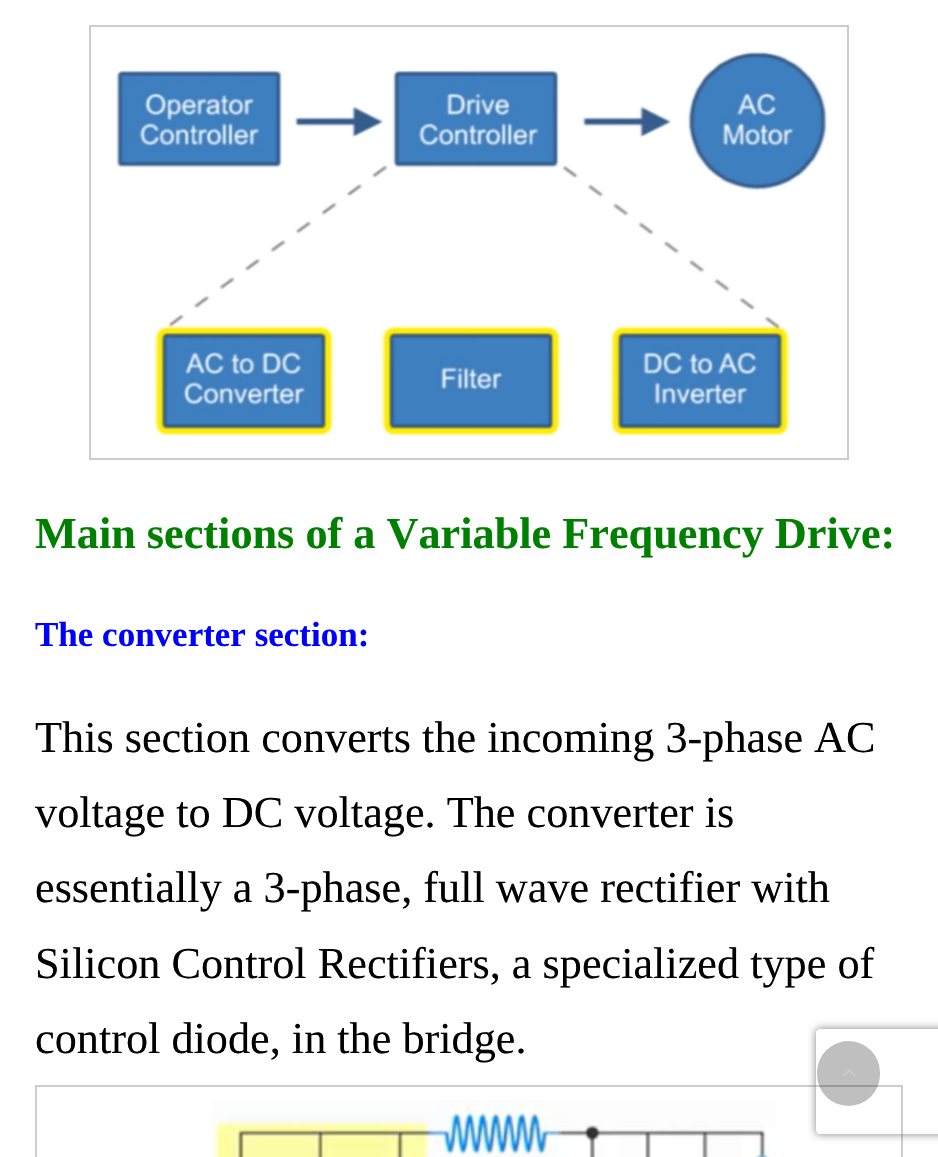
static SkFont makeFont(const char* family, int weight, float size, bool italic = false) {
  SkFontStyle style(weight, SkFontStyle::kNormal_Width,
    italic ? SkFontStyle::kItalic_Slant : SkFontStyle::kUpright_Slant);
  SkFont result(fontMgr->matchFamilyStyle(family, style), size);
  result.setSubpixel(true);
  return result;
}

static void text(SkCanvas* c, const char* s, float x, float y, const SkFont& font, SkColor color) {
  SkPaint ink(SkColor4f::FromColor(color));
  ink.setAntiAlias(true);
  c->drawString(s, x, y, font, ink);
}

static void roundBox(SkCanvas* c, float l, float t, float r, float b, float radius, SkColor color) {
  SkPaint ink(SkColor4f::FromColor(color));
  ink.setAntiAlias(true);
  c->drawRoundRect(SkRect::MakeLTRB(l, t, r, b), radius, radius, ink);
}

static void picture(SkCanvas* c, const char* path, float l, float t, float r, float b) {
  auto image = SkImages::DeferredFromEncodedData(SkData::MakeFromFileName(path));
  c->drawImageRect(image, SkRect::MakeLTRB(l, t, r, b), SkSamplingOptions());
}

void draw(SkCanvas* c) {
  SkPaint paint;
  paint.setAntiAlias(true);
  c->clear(0xffffffff);
  paint.setStyle(SkPaint::kStroke_Style);
  paint.setStrokeWidth(2);
  paint.setColor(0xffcccccc);
  c->drawRect(SkRect::MakeLTRB(90, 26, 848, 459), paint);
  picture(c, "img_01.png", 116, 51, 828, 436);
  SkFont face1 = makeFont("Liberation Serif", 700, 44.25f);
  text(c, "Main sections of a Variable Frequency Drive:", 35, 548, face1, 0xff008000);
  SkFont face2 = makeFont("Liberation Serif", 700, 35);
  text(c, "The converter section:", 35, 646, face2, 0xff0000ff);
  SkFont face3 = makeFont("Liberation Serif", 400, 44.25f);
  text(c, "This section converts the incoming 3-phase AC", 35, 752, face3, 0xff000000);
  text(c, "voltage to DC voltage. The converter is", 35, 827, face3, 0xff000000);
  text(c, "essentially a 3-phase, full wave rectifier with", 35, 902, face3, 0xff000000);
  text(c, "Silicon Control Rectifiers, a specialized type of", 35, 978, face3, 0xff000000);
  text(c, "control diode, in the bridge.", 35, 1053, face3, 0xff000000);
  c->drawRect(SkRect::MakeLTRB(36, 1086, 902, 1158), paint);
  picture(c, "img_02.png", 212, 1100, 776, 1157);
  c->save();
  c->clipPath(SkPathBuilder(SkPathFillType::kEvenOdd).moveTo(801, 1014).lineTo(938, 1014).lineTo(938, 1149).lineTo(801, 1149).close().moveTo(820, 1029).lineTo(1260, 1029).cubicTo(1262, 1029, 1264, 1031, 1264, 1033).lineTo(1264, 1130).cubicTo(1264, 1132, 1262, 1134, 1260, 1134).lineTo(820, 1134).cubicTo(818, 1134, 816, 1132, 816, 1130).lineTo(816, 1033).cubicTo(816, 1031, 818, 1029, 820, 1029).close().detach(), true);
  paint.setStyle(SkPaint::kFill_Style);
  paint.setColor(0xff808080);
  paint.setMaskFilter(SkMaskFilter::MakeBlur(kNormal_SkBlurStyle, 4.5f));
  c->drawRoundRect(SkRect::MakeLTRB(816, 1029, 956, 1134), 4, 4, paint);
  paint.setMaskFilter(nullptr);
  c->restore();
  roundBox(c, 817, 1041, 880, 1106, 31.5f, 0x40000000);
  picture(c, "img_03.png", 843, 1069, 856, 1076);
}
